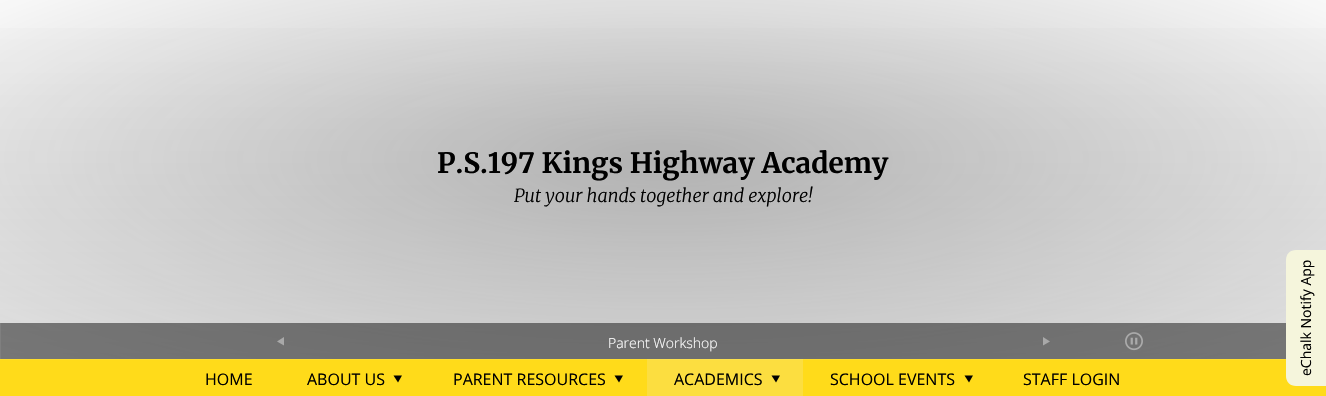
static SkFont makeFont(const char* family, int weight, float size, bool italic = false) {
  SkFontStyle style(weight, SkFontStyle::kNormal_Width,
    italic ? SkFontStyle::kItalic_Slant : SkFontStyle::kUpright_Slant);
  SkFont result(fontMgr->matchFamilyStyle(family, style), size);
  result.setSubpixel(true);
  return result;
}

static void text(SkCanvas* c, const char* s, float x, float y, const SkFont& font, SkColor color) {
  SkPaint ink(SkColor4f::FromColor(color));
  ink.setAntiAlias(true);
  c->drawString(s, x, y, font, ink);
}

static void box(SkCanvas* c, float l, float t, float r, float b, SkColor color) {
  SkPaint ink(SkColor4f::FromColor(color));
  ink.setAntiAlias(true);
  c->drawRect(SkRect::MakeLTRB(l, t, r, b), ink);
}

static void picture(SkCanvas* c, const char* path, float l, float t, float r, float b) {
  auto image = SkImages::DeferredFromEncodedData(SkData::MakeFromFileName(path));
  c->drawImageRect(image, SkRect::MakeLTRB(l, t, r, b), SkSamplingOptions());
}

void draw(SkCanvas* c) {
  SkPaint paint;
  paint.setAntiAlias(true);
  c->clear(0xffffffff);
  {
    const SkColor colors[] = {0xffdfdfdf, 0xffffffff};
    const float stops[] = {0, 1};
    const SkPoint ends[] = {{663, 359}, {663, 0}};
    paint.setShader(SkGradientShader::MakeLinear(ends, colors, stops, 2, SkTileMode::kClamp));
    paint.setAlpha(255);
  }
  c->drawRect(SkRect::MakeLTRB(0, 28, 1326, 359), paint);
  {
    const SkColor colors[] = {0x99878787, 0x00878787};
    const float stops[] = {0, 1};
    SkMatrix m = SkMatrix::Translate(663, 160).preScale(938, 282);
    paint.setShader(SkGradientShader::MakeRadial({0, 0}, 1, colors, stops, 2, SkTileMode::kClamp, 0, &m));
    paint.setAlpha(255);
  }
  c->drawRect(SkRect::MakeLTRB(0, 0, 1326, 359), paint);
  SkFont face1 = makeFont("Merriweather", 700, 28);
  text(c, "P.S.197 Kings Highway Academy", 437, 173, face1, 0xff000000);
  SkFont face2 = makeFont("Merriweather", 300, 18, true);
  text(c, "Put your hands together and explore!", 514, 202, face2, 0xff000000);
  box(c, 1, 323, 1286, 359, 0x800d0d0d);
  box(c, 0, 323, 1, 359, 0xff7f7f7f);
  paint.setShader(nullptr);
  paint.setColor(0xffa9a9a9);
  c->drawPath(SkPathBuilder().moveTo(284, 337).lineTo(277, 341.5f).lineTo(284, 345.5f).close().detach(), paint);
  c->drawPath(SkPathBuilder().moveTo(1043, 337).lineTo(1050, 341.5f).lineTo(1043, 345.5f).close().detach(), paint);
  picture(c, "img_01.png", 1125, 332, 1143, 351);
  SkFont face3 = makeFont("Open Sans", 300, 14);
  text(c, "Parent Workshop", 608, 348, face3, 0xffffffff);
  box(c, 0, 360, 1326, 396, 0xffffdb1a);
  box(c, 647, 360, 803, 396, 0xfffcde40);
  box(c, 0, 359, 1286, 360, 0xffffde2a);
  box(c, 647, 359, 803, 360, 0xfffce14d);
  SkFont face4 = makeFont("Open Sans", 400, 16);
  text(c, "HOME", 205, 385, face4, 0xff000000);
  text(c, "ABOUT US", 307, 385, face4, 0xff000000);
  paint.setColor(0xff000000);
  c->drawPath(SkPathBuilder().moveTo(393.5f, 375.5f).lineTo(398, 382.5f).lineTo(402, 375.5f).close().detach(), paint);
  text(c, "PARENT RESOURCES", 453, 385, face4, 0xff000000);
  c->drawPath(SkPathBuilder().moveTo(614.5f, 375.5f).lineTo(619, 382.5f).lineTo(623, 375.5f).close().detach(), paint);
  text(c, "ACADEMICS", 674, 385, face4, 0xff000000);
  c->drawPath(SkPathBuilder().moveTo(771.5f, 375.5f).lineTo(776, 382.5f).lineTo(780, 375.5f).close().detach(), paint);
  text(c, "SCHOOL EVENTS", 830, 385, face4, 0xff000000);
  c->drawPath(SkPathBuilder().moveTo(964.5f, 375.5f).lineTo(969, 382.5f).lineTo(973, 375.5f).close().detach(), paint);
  text(c, "STAFF LOGIN", 1023, 385, face4, 0xff000000);
  paint.setColor(0xfff5f5dc);
  c->drawPath(SkPathBuilder().moveTo(1286, 376).lineTo(1286, 260).cubicTo(1286, 254, 1290, 250, 1296, 250).lineTo(1326, 250).lineTo(1326, 386).lineTo(1296, 386).cubicTo(1290, 386, 1286, 382, 1286, 376).close().detach(), paint);
  SkFont face5 = makeFont("Open Sans", 400, 14);
  c->save();
  c->rotate(-90, 1311, 376);
  text(c, "eChalk Notify App", 1311, 376, face5, 0xff000000);
  c->restore();
}
